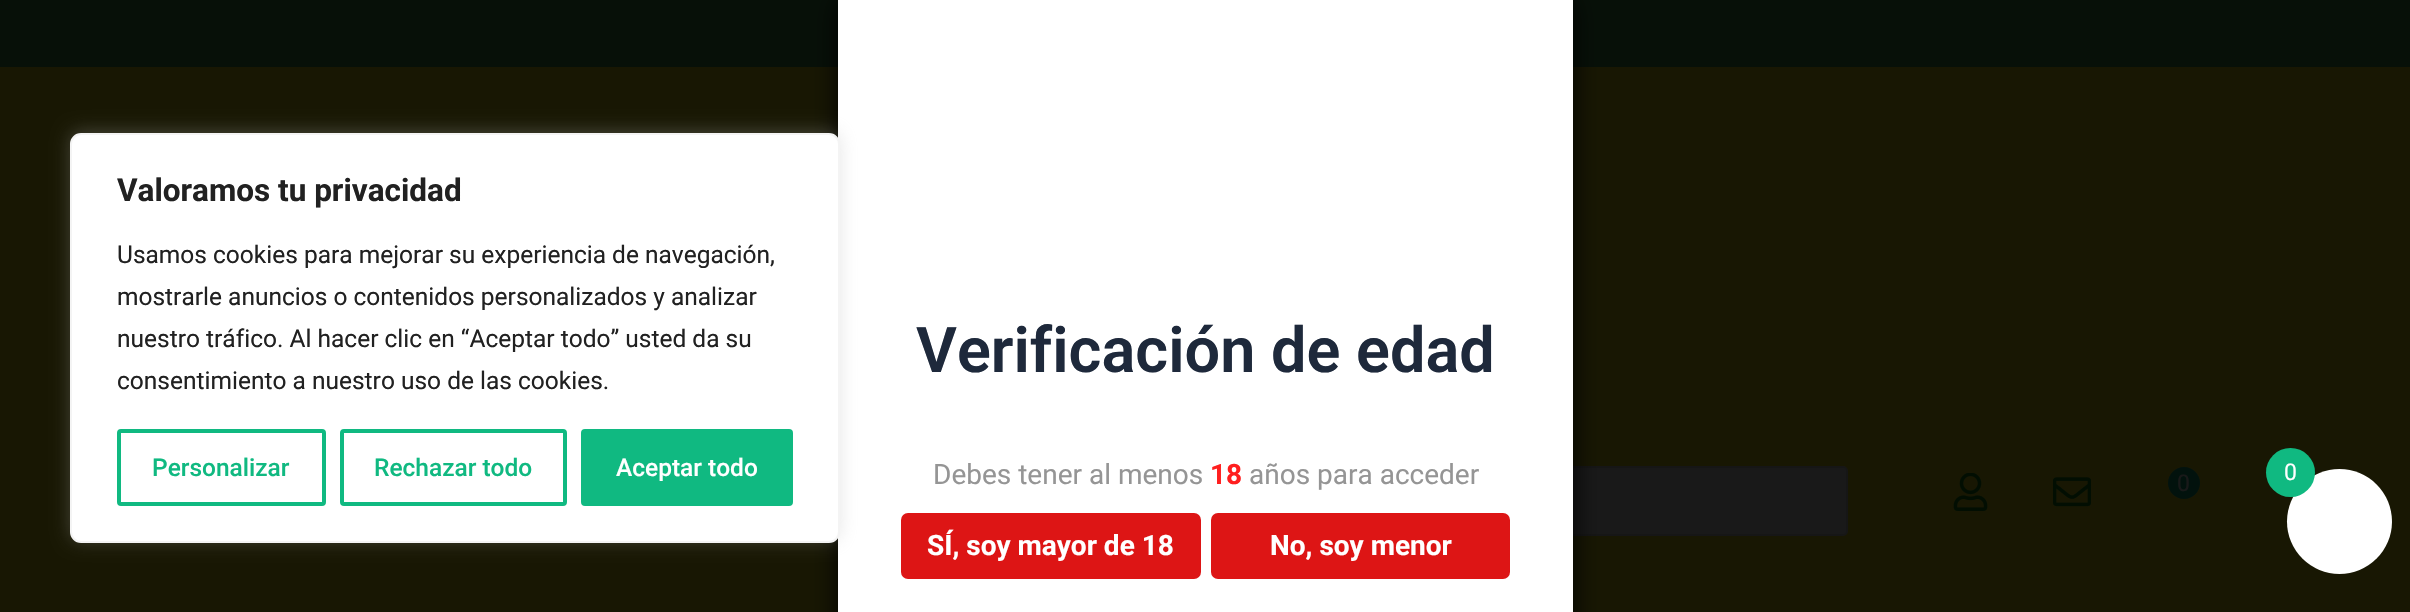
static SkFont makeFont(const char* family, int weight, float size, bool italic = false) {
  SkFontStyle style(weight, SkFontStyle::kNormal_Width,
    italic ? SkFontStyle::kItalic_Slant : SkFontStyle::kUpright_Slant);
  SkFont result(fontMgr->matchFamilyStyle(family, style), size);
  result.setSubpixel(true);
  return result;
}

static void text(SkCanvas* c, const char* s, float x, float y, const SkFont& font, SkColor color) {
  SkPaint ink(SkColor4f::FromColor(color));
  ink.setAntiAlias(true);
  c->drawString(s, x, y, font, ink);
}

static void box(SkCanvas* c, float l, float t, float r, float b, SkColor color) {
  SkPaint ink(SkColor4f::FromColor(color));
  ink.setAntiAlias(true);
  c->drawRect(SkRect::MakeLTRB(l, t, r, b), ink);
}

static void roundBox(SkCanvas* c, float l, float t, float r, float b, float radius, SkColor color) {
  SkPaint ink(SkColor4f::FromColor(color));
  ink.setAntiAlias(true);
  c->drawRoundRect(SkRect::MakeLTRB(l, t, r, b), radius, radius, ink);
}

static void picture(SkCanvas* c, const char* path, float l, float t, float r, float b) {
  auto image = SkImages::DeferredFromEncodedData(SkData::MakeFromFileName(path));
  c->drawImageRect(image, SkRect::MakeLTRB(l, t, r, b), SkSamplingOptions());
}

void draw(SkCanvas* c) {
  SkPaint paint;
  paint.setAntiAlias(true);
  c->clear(0xff071008);
  box(c, 0, 67, 2410, 612, 0xff181703);
  paint.setColor(0xff191919);
  c->drawRoundRect(SkRect::MakeLTRB(544, 467, 1847, 535), 4, 4, paint);
  paint.setStyle(SkPaint::kStroke_Style);
  paint.setStrokeWidth(2);
  paint.setColor(0xff161616);
  c->drawRoundRect(SkRect::MakeLTRB(544, 467, 1847, 535), 4, 4, paint);
  paint.setStyle(SkPaint::kFill_Style);
  paint.setColor(0xff000000);
  paint.setMaskFilter(SkMaskFilter::MakeBlur(kNormal_SkBlurStyle, 13));
  c->drawRect(SkRect::MakeLTRB(838, 0, 1573, 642), paint);
  paint.setMaskFilter(nullptr);
  box(c, 838, 0, 1573, 612, 0xffffffff);
  paint.setColor(0x4dacabab);
  paint.setMaskFilter(SkMaskFilter::MakeBlur(kNormal_SkBlurStyle, 9));
  c->drawRoundRect(SkRect::MakeLTRB(70, 131, 840, 541), 11, 11, paint);
  paint.setMaskFilter(nullptr);
  paint.setColor(0xffffffff);
  c->drawRoundRect(SkRect::MakeLTRB(71, 134, 839, 542), 10, 10, paint);
  paint.setStyle(SkPaint::kStroke_Style);
  paint.setColor(0xfff4f4f4);
  c->drawRoundRect(SkRect::MakeLTRB(71, 134, 839, 542), 10, 10, paint);
  SkFont face1 = makeFont("Roboto", 700, 31.5f);
  text(c, "Valoramos tu privacidad", 117, 201, face1, 0xff212121);
  SkFont face2 = makeFont("Roboto", 400, 24.5f);
  text(c, "Usamos cookies para mejorar su experiencia de navegación,", 117, 263, face2, 0xff212121);
  text(c, "mostrarle anuncios o contenidos personalizados y analizar", 117, 305, face2, 0xff212121);
  text(c, "nuestro tráfico. Al hacer clic en “Aceptar todo” usted da su", 117, 347, face2, 0xff212121);
  text(c, "consentimiento a nuestro uso de las cookies.", 117, 389, face2, 0xff212121);
  paint.setStrokeWidth(4);
  paint.setColor(0xff10b981);
  c->drawRoundRect(SkRect::MakeLTRB(119, 431, 324, 504), 2, 2, paint);
  SkFont face3 = makeFont("Roboto", 500, 24.5f);
  text(c, "Personalizar", 152, 476, face3, 0xff10b981);
  c->drawRoundRect(SkRect::MakeLTRB(342, 431, 565, 504), 2, 2, paint);
  text(c, "Rechazar todo", 374, 476, face3, 0xff10b981);
  paint.setStyle(SkPaint::kFill_Style);
  c->drawRoundRect(SkRect::MakeLTRB(583, 431, 791, 504), 2, 2, paint);
  paint.setStyle(SkPaint::kStroke_Style);
  c->drawRoundRect(SkRect::MakeLTRB(583, 431, 791, 504), 2, 2, paint);
  text(c, "Aceptar todo", 616, 476, face3, 0xffffffff);
  SkFont face4 = makeFont("Roboto", 600, 63);
  text(c, "Verificación de edad", 916, 372, face4, 0xff1e293b);
  SkFont face5 = makeFont("Roboto", 400, 28);
  text(c, "Debes tener al menos", 933, 484, face5, 0xff959595);
  SkFont face6 = makeFont("Roboto", 700, 28);
  text(c, "18", 1210, 484, face6, 0xffff1f1f);
  text(c, "años para acceder", 1249, 484, face5, 0xff959595);
  roundBox(c, 901, 513, 1201, 579, 7, 0xffdd1515);
  text(c, "SÍ, soy mayor de 18", 927, 555, face6, 0xffffffff);
  roundBox(c, 1211, 513, 1510, 579, 7, 0xffdd1515);
  text(c, "No, soy menor", 1270, 555, face6, 0xffffffff);
  paint.setStyle(SkPaint::kFill_Style);
  paint.setColor(0xffffffff);
  c->drawCircle(2339.5f, 521.5f, 52.5f, paint);
  paint.setColor(0xff10b981);
  c->drawCircle(2290.5f, 472.5f, 24.5f, paint);
  SkFont face7 = makeFont("Roboto", 400, 23);
  text(c, "0", 2284, 480, face7, 0xffffffff);
  picture(c, "img_01.png", 1953, 473, 1988, 511);
  picture(c, "img_02.png", 2053, 477, 2091, 507);
  paint.setColor(0xff02120d);
  c->drawCircle(2184, 483, 16, paint);
  text(c, "0", 2177, 491, face7, 0xff191919);
}
